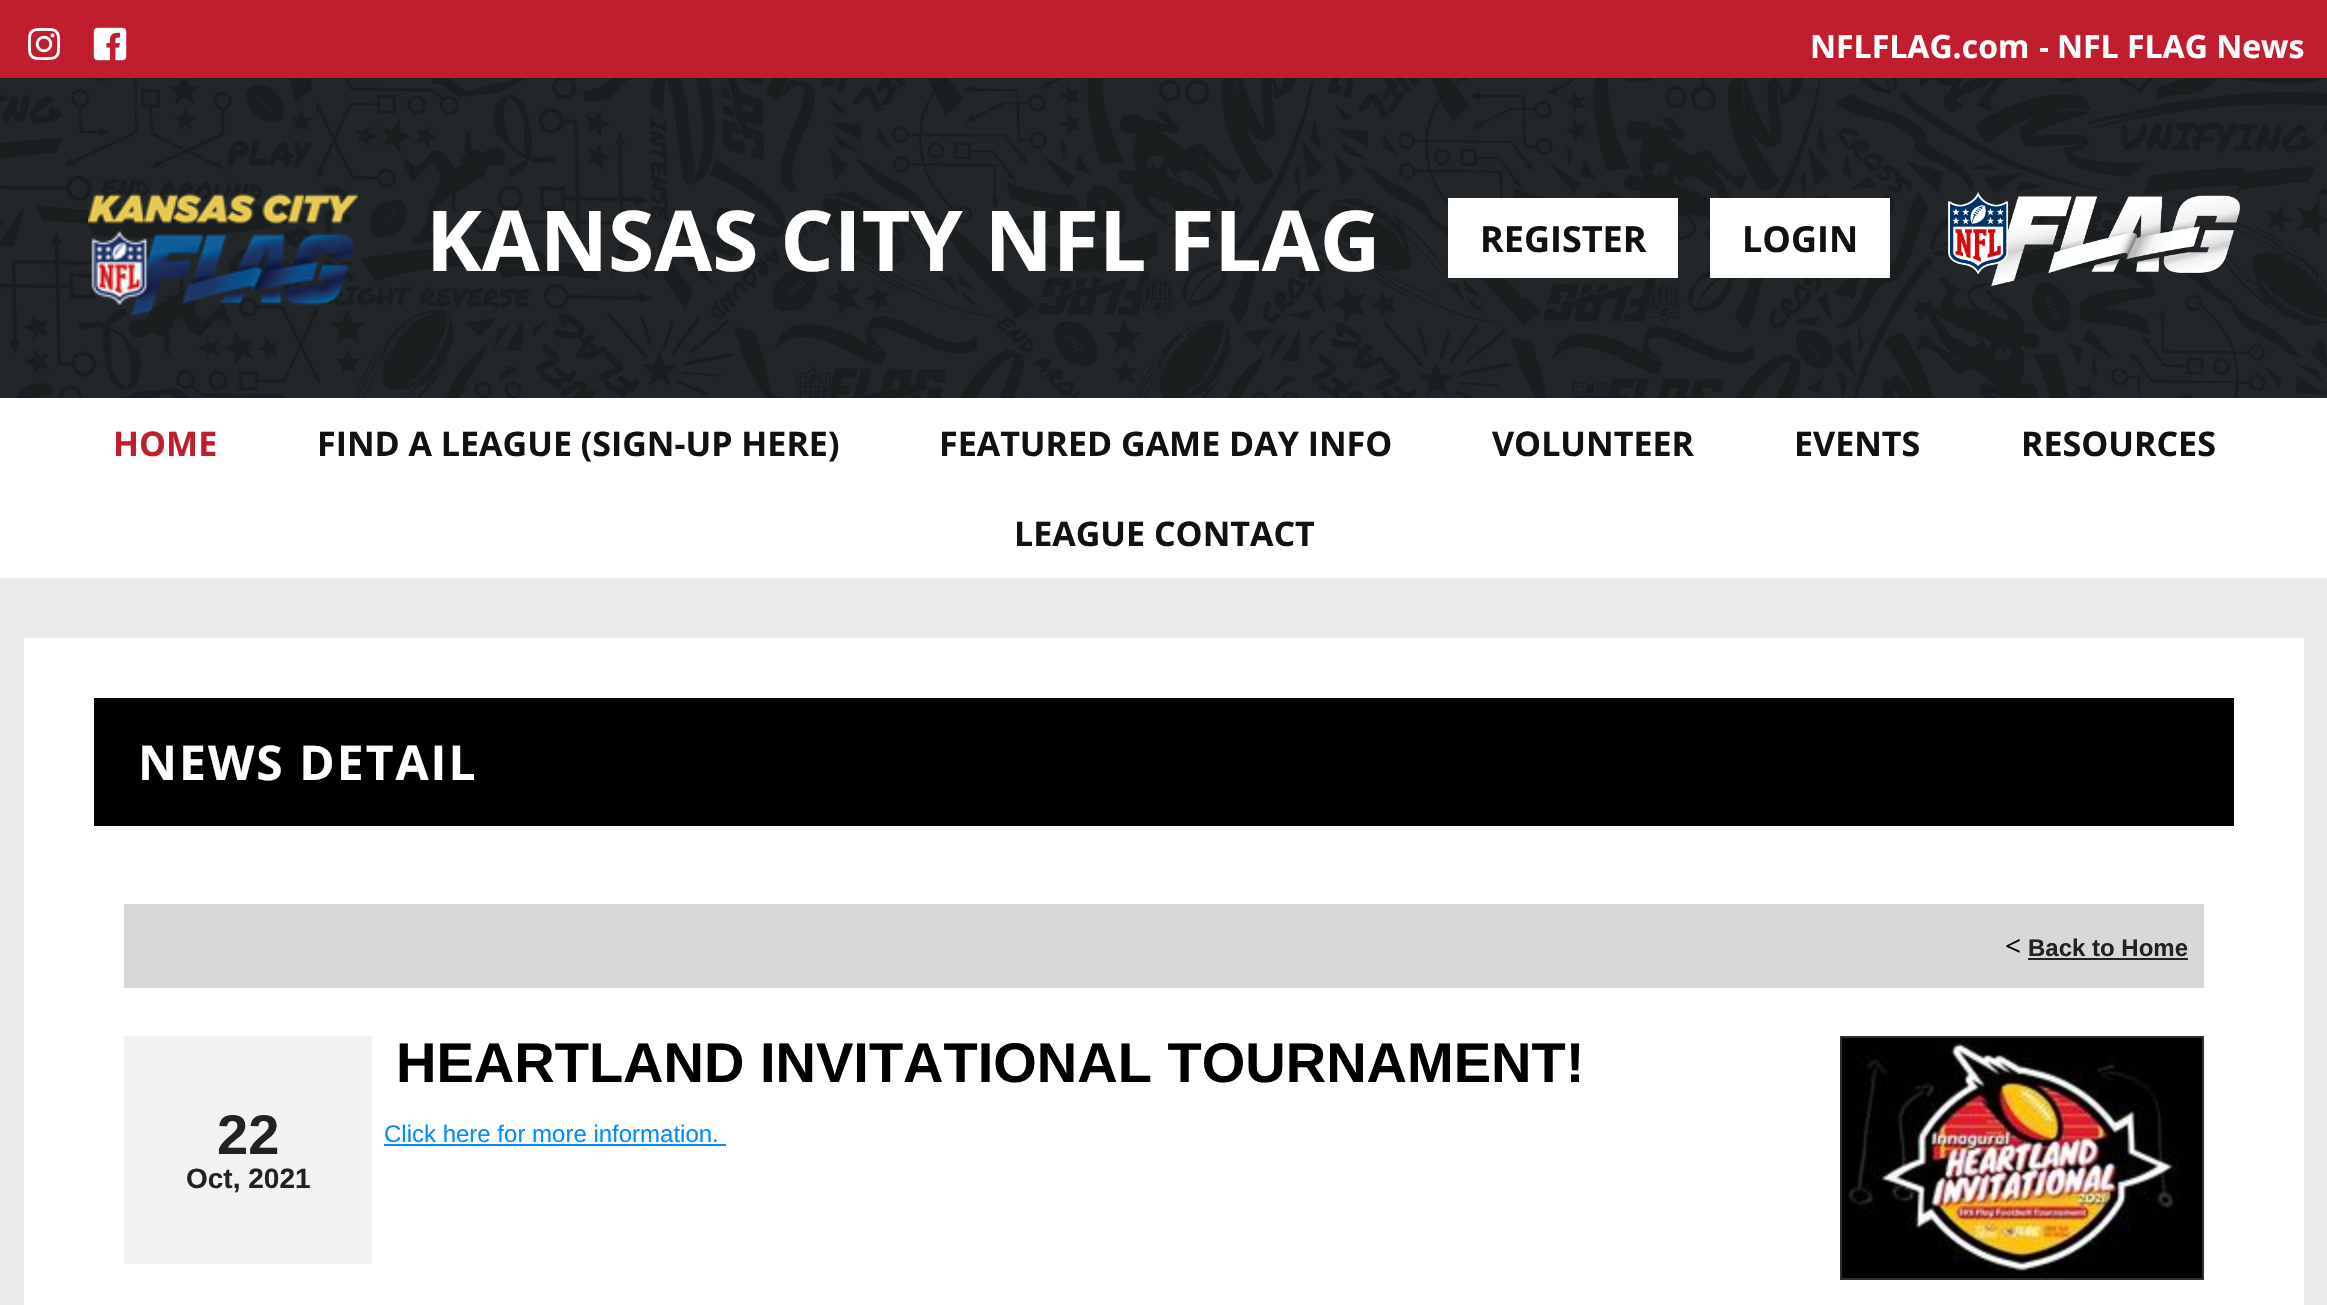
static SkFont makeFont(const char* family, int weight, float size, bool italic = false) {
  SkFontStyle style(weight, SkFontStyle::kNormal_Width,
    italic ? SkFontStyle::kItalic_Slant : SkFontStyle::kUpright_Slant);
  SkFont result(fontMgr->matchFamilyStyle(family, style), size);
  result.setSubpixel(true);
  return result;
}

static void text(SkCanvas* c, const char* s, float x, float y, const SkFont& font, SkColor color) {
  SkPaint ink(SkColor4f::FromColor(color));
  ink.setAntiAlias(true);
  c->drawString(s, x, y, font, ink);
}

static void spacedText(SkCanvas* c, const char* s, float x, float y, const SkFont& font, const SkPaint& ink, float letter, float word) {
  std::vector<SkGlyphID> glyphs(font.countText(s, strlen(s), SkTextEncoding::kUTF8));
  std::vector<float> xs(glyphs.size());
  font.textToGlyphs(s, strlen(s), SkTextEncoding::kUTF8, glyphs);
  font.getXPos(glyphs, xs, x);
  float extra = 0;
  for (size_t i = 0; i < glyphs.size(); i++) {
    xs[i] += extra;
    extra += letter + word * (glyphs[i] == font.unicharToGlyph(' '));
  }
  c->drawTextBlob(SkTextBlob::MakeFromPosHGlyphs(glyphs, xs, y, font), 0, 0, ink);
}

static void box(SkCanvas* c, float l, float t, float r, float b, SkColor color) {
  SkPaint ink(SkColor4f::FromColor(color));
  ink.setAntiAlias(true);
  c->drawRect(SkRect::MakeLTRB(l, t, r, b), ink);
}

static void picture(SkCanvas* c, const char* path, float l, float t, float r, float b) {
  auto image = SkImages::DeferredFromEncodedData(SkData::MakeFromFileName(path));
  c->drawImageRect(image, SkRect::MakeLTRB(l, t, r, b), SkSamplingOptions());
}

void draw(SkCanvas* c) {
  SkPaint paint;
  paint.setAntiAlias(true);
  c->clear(0xffffffff);
  box(c, 0, 0, 2327, 78, 0xffc01d2e);
  picture(c, "img_01.png", 28, 28, 60, 60);
  picture(c, "img_02.png", 93, 27, 127, 61);
  SkFont face1 = makeFont("Open Sans", 700, 32);
  text(c, "NFLFLAG.com", 1810, 58, face1, 0xffffffff);
  box(c, 2040, 48, 2048, 52, 0xffffffff);
  text(c, "NFL FLAG News", 2057, 58, face1, 0xffffffff);
  picture(c, "img_03.png", 0, 78, 2327, 398);
  picture(c, "img_04.png", 88, 193, 358, 317);
  SkFont face2 = makeFont("Open Sans", 700, 84);
  text(c, "KANSAS CITY NFL FLAG", 426, 271, face2, 0xffffffff);
  box(c, 1448, 198, 1678, 278, 0xffffffff);
  SkFont face3 = makeFont("Open Sans", 700, 36);
  text(c, "REGISTER", 1480, 252, face3, 0xff111111);
  box(c, 1710, 198, 1890, 278, 0xffffffff);
  text(c, "LOGIN", 1742, 252, face3, 0xff111111);
  picture(c, "img_05.png", 1948, 192, 2240, 286);
  SkFont face4 = makeFont("Open Sans", 700, 34);
  text(c, "HOME", 113, 456, face4, 0xffc01d2e);
  text(c, "FIND A LEAGUE (SIGN-UP HERE)", 317, 456, face4, 0xff111111);
  text(c, "FEATURED GAME DAY INFO", 939, 456, face4, 0xff111111);
  text(c, "VOLUNTEER", 1492, 456, face4, 0xff111111);
  text(c, "EVENTS", 1794, 456, face4, 0xff111111);
  text(c, "RESOURCES", 2021, 456, face4, 0xff111111);
  text(c, "LEAGUE CONTACT", 1014, 546, face4, 0xff111111);
  box(c, 0, 578, 2327, 1305, 0xffeaeaea);
  box(c, 24, 638, 2304, 1305, 0xffffffff);
  box(c, 94, 698, 2234, 826, 0xff000000);
  SkFont face5 = makeFont("Open Sans", 700, 48);
  paint.setColor(0xffffffff);
  spacedText(c, "NEWS DETAIL", 138, 780, face5, paint, 2, 0);
  box(c, 124, 904, 2204, 988, 0xffd8d8d8);
  SkFont face6 = makeFont("Open Sans", 400, 28);
  text(c, "<", 2005, 956, face6, 0xff000000);
  SkFont face7 = makeFont("Liberation Sans", 700, 24);
  text(c, "Back to Home", 2028, 956, face7, 0xff222222);
  box(c, 2028, 958, 2188, 960, 0xff222222);
  SkFont face8 = makeFont("Liberation Sans", 700, 56);
  text(c, "HEARTLAND INVITATIONAL TOURNAMENT!", 396, 1082, face8, 0xff000000);
  paint.setStyle(SkPaint::kStroke_Style);
  paint.setStrokeWidth(2);
  paint.setColor(0xff303030);
  c->drawRect(SkRect::MakeLTRB(1841, 1037, 2203, 1279), paint);
  picture(c, "img_06.png", 1842, 1038, 2202, 1278);
  box(c, 124, 1036, 372, 1264, 0xfff2f2f2);
  text(c, "22", 217, 1154, face8, 0xff222222);
  SkFont face9 = makeFont("Liberation Sans", 700, 28);
  text(c, "Oct, 2021", 186, 1188, face9, 0xff222222);
  SkFont face10 = makeFont("Liberation Sans", 400, 24);
  text(c, "Click here for more information.", 384, 1142, face10, 0xff028bff);
  box(c, 384, 1144, 726, 1146, 0xff028bff);
}
